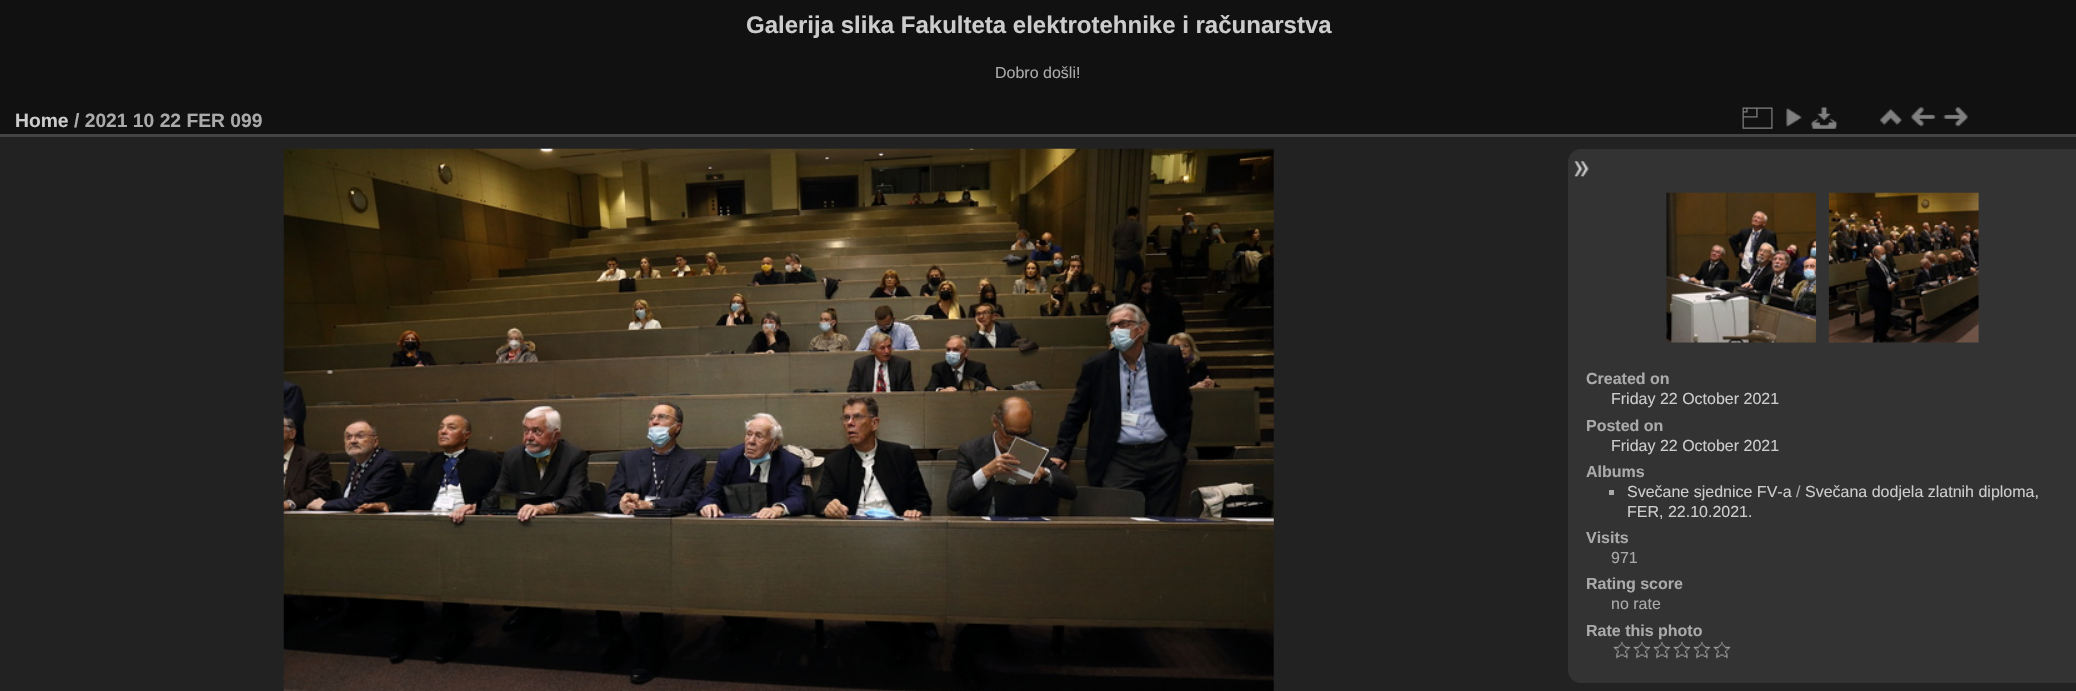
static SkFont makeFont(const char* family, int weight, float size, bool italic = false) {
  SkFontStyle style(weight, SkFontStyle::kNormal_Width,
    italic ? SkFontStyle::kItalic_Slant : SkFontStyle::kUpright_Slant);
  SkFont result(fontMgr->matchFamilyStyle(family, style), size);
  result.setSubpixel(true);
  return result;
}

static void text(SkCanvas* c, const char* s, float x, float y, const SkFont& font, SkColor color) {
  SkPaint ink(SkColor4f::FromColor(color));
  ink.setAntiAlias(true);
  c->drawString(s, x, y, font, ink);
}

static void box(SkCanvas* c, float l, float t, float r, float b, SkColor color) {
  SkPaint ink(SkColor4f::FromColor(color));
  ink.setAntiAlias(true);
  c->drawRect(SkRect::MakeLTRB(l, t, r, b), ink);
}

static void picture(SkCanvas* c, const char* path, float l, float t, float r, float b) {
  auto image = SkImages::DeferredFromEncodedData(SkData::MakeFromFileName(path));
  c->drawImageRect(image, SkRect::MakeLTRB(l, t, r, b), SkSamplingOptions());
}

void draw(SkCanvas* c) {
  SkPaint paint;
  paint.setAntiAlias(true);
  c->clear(0xff111111);
  SkFont face1 = makeFont("Liberation Sans", 700, 24);
  text(c, "Galerija slika Fakulteta elektrotehnike i računarstva", 746, 33, face1, 0xffcccccc);
  SkFont face2 = makeFont("Liberation Sans", 400, 16);
  text(c, "Dobro došli!", 995, 78, face2, 0xffaaaaaa);
  box(c, 0, 137, 2076, 691, 0xff222222);
  box(c, 0, 134, 2076, 137, 0xff444444);
  SkFont face3 = makeFont("Liberation Sans", 700, 19.25f);
  text(c, "Home", 15, 127, face3, 0xffcccccc);
  text(c, "/ 2021 10 22 FER 099", 74, 127, face3, 0xffaaaaaa);
  picture(c, "img_01.png", 1742, 107, 1773, 129);
  picture(c, "img_02.png", 1786, 108, 1802, 127);
  picture(c, "img_03.png", 1811, 107, 1838, 129);
  picture(c, "img_04.png", 1880, 108, 1902, 126);
  picture(c, "img_05.png", 1911, 107, 1936, 127);
  picture(c, "img_06.png", 1943, 107, 1968, 127);
  picture(c, "img_07.png", 283, 148, 1274, 691);
  paint.setColor(0xff333333);
  c->drawPath(SkPathBuilder().moveTo(1581, 149).lineTo(2076, 149).lineTo(2076, 683).lineTo(1581, 683).cubicTo(1574, 683, 1568, 677, 1568, 670).lineTo(1568, 162).cubicTo(1568, 155, 1574, 149, 1581, 149).close().detach(), paint);
  picture(c, "img_08.png", 1574, 161, 1589, 177);
  picture(c, "img_09.png", 1666, 192, 1817, 343);
  picture(c, "img_10.png", 1828, 192, 1979, 343);
  SkFont face4 = makeFont("Liberation Sans", 700, 16);
  text(c, "Created on", 1586, 384, face4, 0xffaaaaaa);
  text(c, "Friday 22 October 2021", 1611, 404, face2, 0xffcccccc);
  text(c, "Posted on", 1586, 431, face4, 0xffaaaaaa);
  text(c, "Friday 22 October 2021", 1611, 451, face2, 0xffcccccc);
  text(c, "Albums", 1586, 477, face4, 0xffaaaaaa);
  box(c, 1609, 490, 1614, 495, 0xffaaaaaa);
  text(c, "Svečane sjednice FV-a", 1627, 497, face2, 0xffcccccc);
  text(c, "/", 1796, 497, face2, 0xffaaaaaa);
  text(c, "Svečana dodjela zlatnih diploma,", 1805, 497, face2, 0xffcccccc);
  text(c, "FER, 22.10.2021.", 1627, 517, face2, 0xffcccccc);
  text(c, "Visits", 1586, 543, face4, 0xffaaaaaa);
  text(c, "971", 1611, 563, face2, 0xffaaaaaa);
  text(c, "Rating score", 1586, 589, face4, 0xffaaaaaa);
  text(c, "no rate", 1611, 609, face2, 0xffaaaaaa);
  text(c, "Rate this photo", 1586, 636, face4, 0xffaaaaaa);
  picture(c, "img_11.png", 1613, 641, 1631, 659);
  picture(c, "img_11.png", 1633, 641, 1651, 659);
  picture(c, "img_11.png", 1653, 641, 1671, 659);
  picture(c, "img_11.png", 1673, 641, 1691, 659);
  picture(c, "img_11.png", 1693, 641, 1711, 659);
  picture(c, "img_11.png", 1713, 641, 1731, 659);
}
